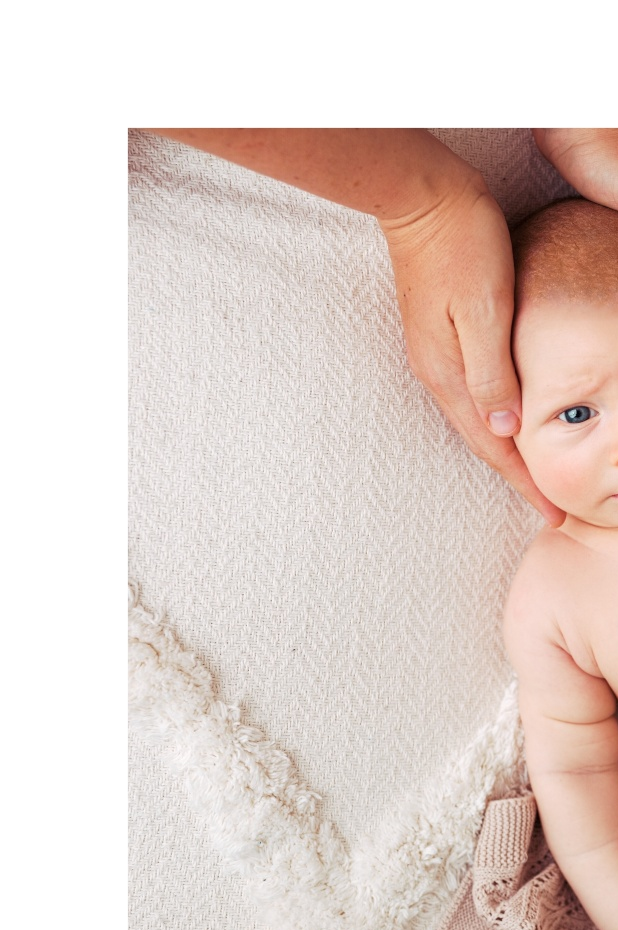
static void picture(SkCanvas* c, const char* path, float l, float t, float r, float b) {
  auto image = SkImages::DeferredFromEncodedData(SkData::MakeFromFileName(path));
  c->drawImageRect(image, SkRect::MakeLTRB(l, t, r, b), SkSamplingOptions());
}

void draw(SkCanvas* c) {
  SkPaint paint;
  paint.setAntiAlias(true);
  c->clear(0xffffffff);
  picture(c, "img_01.png", 127, 126, 618, 930);
}
